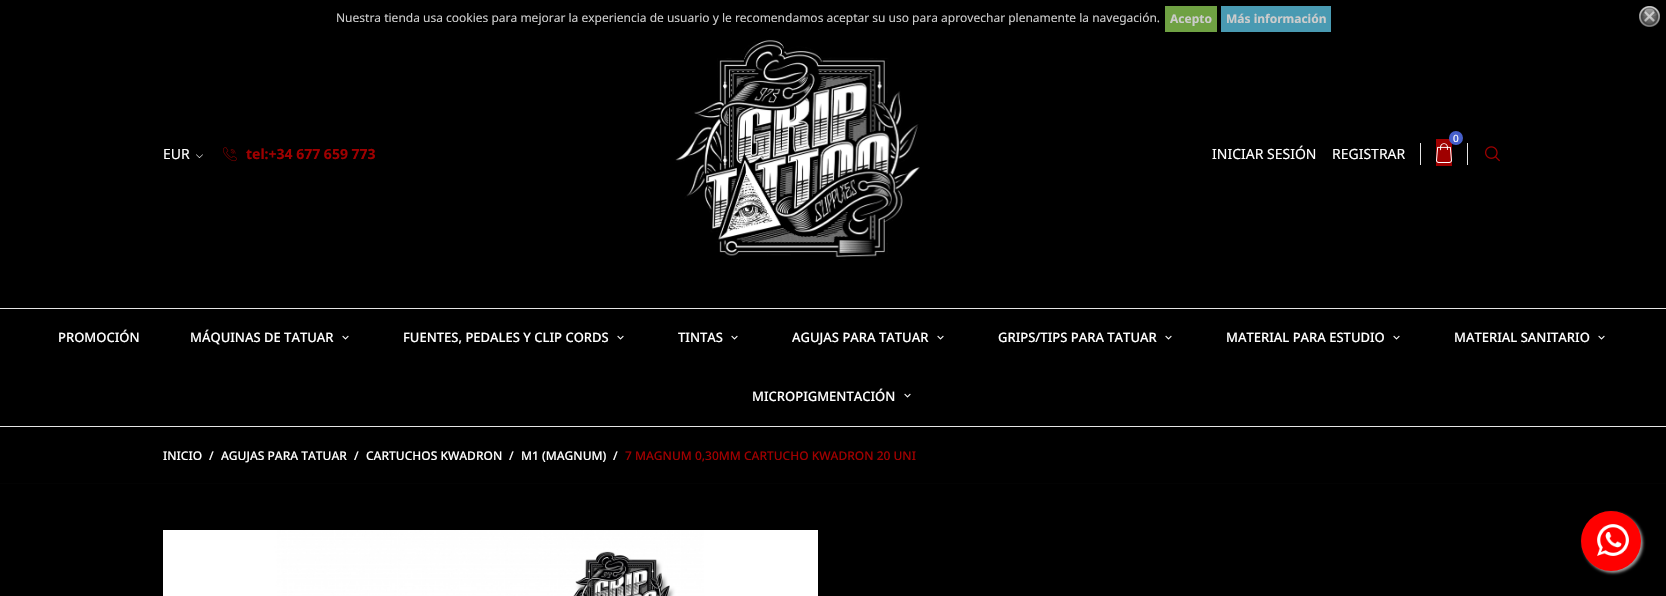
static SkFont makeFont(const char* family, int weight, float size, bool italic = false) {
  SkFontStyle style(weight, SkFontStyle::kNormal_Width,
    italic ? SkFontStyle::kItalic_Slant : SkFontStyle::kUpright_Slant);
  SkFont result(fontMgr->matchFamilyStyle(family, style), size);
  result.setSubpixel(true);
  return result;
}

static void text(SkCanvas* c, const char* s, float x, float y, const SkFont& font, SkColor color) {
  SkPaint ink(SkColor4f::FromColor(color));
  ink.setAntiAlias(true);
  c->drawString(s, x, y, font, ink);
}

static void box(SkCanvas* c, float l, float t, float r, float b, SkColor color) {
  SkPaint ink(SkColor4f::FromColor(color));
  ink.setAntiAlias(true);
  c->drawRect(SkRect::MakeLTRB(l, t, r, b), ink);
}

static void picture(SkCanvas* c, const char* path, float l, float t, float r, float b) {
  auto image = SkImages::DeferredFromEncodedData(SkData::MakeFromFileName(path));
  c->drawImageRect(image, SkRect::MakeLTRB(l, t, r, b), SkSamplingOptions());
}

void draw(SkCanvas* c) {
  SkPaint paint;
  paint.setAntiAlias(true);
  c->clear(0xff000000);
  box(c, 0, 308, 1666, 309, 0xffe5e5e5);
  box(c, 0, 426, 1666, 427, 0xffe5e5e5);
  picture(c, "img_05.png", 675, 39, 920, 260);
  c->save();
  c->clipPath(SkPathBuilder(SkPathFillType::kEvenOdd).moveTo(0, 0).lineTo(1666, 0).lineTo(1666, 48).lineTo(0, 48).close().moveTo(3, 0).lineTo(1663, 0).cubicTo(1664.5f, 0, 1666, 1.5f, 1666, 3).lineTo(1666, 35).cubicTo(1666, 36.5f, 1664.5f, 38, 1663, 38).lineTo(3, 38).cubicTo(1.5f, 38, 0, 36.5f, 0, 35).lineTo(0, 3).cubicTo(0, 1.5f, 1.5f, 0, 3, 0).close().detach(), true);
  paint.setColor(0xcc000000);
  paint.setMaskFilter(SkMaskFilter::MakeBlur(kNormal_SkBlurStyle, 2.5f));
  c->drawRoundRect(SkRect::MakeLTRB(0, 1, 1666, 39), 3, 3, paint);
  paint.setMaskFilter(nullptr);
  c->restore();
  SkFont face1 = makeFont("Noto Sans", 400, 12);
  text(c, "Nuestra tienda usa cookies para mejorar la experiencia de usuario y le recomendamos aceptar su uso para aprovechar plenamente la navegación.", 336, 22, face1, 0xffcccccc);
  box(c, 1165, 6, 1217, 32, 0xff6fa143);
  SkFont face2 = makeFont("Noto Sans", 700, 12);
  text(c, "Acepto", 1170, 23, face2, 0xffcccccc);
  box(c, 1221, 6, 1331, 32, 0xff499ab2);
  text(c, "Más información", 1226, 23, face2, 0xffcccccc);
  picture(c, "img_01.png", 1639, 6, 1660, 27);
  SkFont face3 = makeFont("Noto Sans", 500, 13);
  text(c, "PROMOCIÓN", 58, 342, face3, 0xffffffff);
  text(c, "MÁQUINAS DE TATUAR", 190, 342, face3, 0xffffffff);
  picture(c, "img_02.png", 342, 335, 349, 340);
  text(c, "FUENTES, PEDALES Y CLIP CORDS", 403, 342, face3, 0xffffffff);
  picture(c, "img_02.png", 617, 335, 624, 340);
  text(c, "TINTAS", 678, 342, face3, 0xffffffff);
  picture(c, "img_02.png", 731, 335, 738, 340);
  text(c, "AGUJAS PARA TATUAR", 792, 342, face3, 0xffffffff);
  picture(c, "img_02.png", 937, 335, 944, 340);
  text(c, "GRIPS/TIPS PARA TATUAR", 998, 342, face3, 0xffffffff);
  picture(c, "img_02.png", 1165, 335, 1172, 340);
  text(c, "MATERIAL PARA ESTUDIO", 1226, 342, face3, 0xffffffff);
  picture(c, "img_02.png", 1393, 335, 1400, 340);
  text(c, "MATERIAL SANITARIO", 1454, 342, face3, 0xffffffff);
  picture(c, "img_02.png", 1598, 335, 1605, 340);
  text(c, "MICROPIGMENTACIÓN", 752, 401, face3, 0xffffffff);
  picture(c, "img_02.png", 904, 393, 911, 398);
  SkFont face4 = makeFont("Noto Sans", 400, 14);
  text(c, "EUR", 163, 159, face4, 0xffffffff);
  picture(c, "img_03.png", 196, 154, 203, 158);
  picture(c, "img_04.png", 223, 147, 237, 162);
  SkFont face5 = makeFont("Noto Sans", 700, 14);
  text(c, "tel:+34 677 659 773", 246, 159, face5, 0xff9f0000);
  box(c, 1467, 143, 1468, 165, 0xffe5e5e5);
  box(c, 1420, 143, 1421, 165, 0xffe5e5e5);
  box(c, 1436, 139, 1452, 166, 0xff9f0000);
  picture(c, "img_06.png", 1436, 143, 1452, 163);
  paint.setColor(0xff465fcb);
  c->drawCircle(1456, 138, 7, paint);
  SkFont face6 = makeFont("Noto Sans", 400, 10);
  text(c, "0", 1453, 142, face6, 0xffffffff);
  text(c, "INICIAR SESIÓN", 1212, 159, face4, 0xffffffff);
  text(c, "REGISTRAR", 1332, 159, face4, 0xffffffff);
  picture(c, "img_07.png", 1485, 146, 1500, 162);
  box(c, 0, 483, 1666, 484, 0xff030303);
  SkFont face7 = makeFont("Noto Sans", 500, 12);
  text(c, "INICIO", 163, 460, face7, 0xffffffff);
  text(c, "/", 209, 460, face7, 0xffffffff);
  text(c, "AGUJAS PARA TATUAR", 221, 460, face7, 0xffffffff);
  text(c, "/", 354, 460, face7, 0xffffffff);
  text(c, "CARTUCHOS KWADRON", 366, 460, face7, 0xffffffff);
  text(c, "/", 509, 460, face7, 0xffffffff);
  text(c, "M1 (MAGNUM)", 521, 460, face7, 0xffffffff);
  text(c, "/", 613, 460, face7, 0xffffffff);
  text(c, "7 MAGNUM 0,30MM CARTUCHO KWADRON 20 UNI", 625, 460, face7, 0xff9f0000);
  picture(c, "img_08.png", 163, 530, 818, 596);
  paint.setColor(0xff999999);
  paint.setMaskFilter(SkMaskFilter::MakeBlur(kNormal_SkBlurStyle, 1.5f));
  c->drawRoundRect(SkRect::MakeLTRB(1583, 513, 1643, 573), 30, 30, paint);
  paint.setMaskFilter(nullptr);
  paint.setColor(0xffff0000);
  c->drawCircle(1611, 541, 30, paint);
  picture(c, "img_09.png", 1597, 524, 1629, 556);
}
